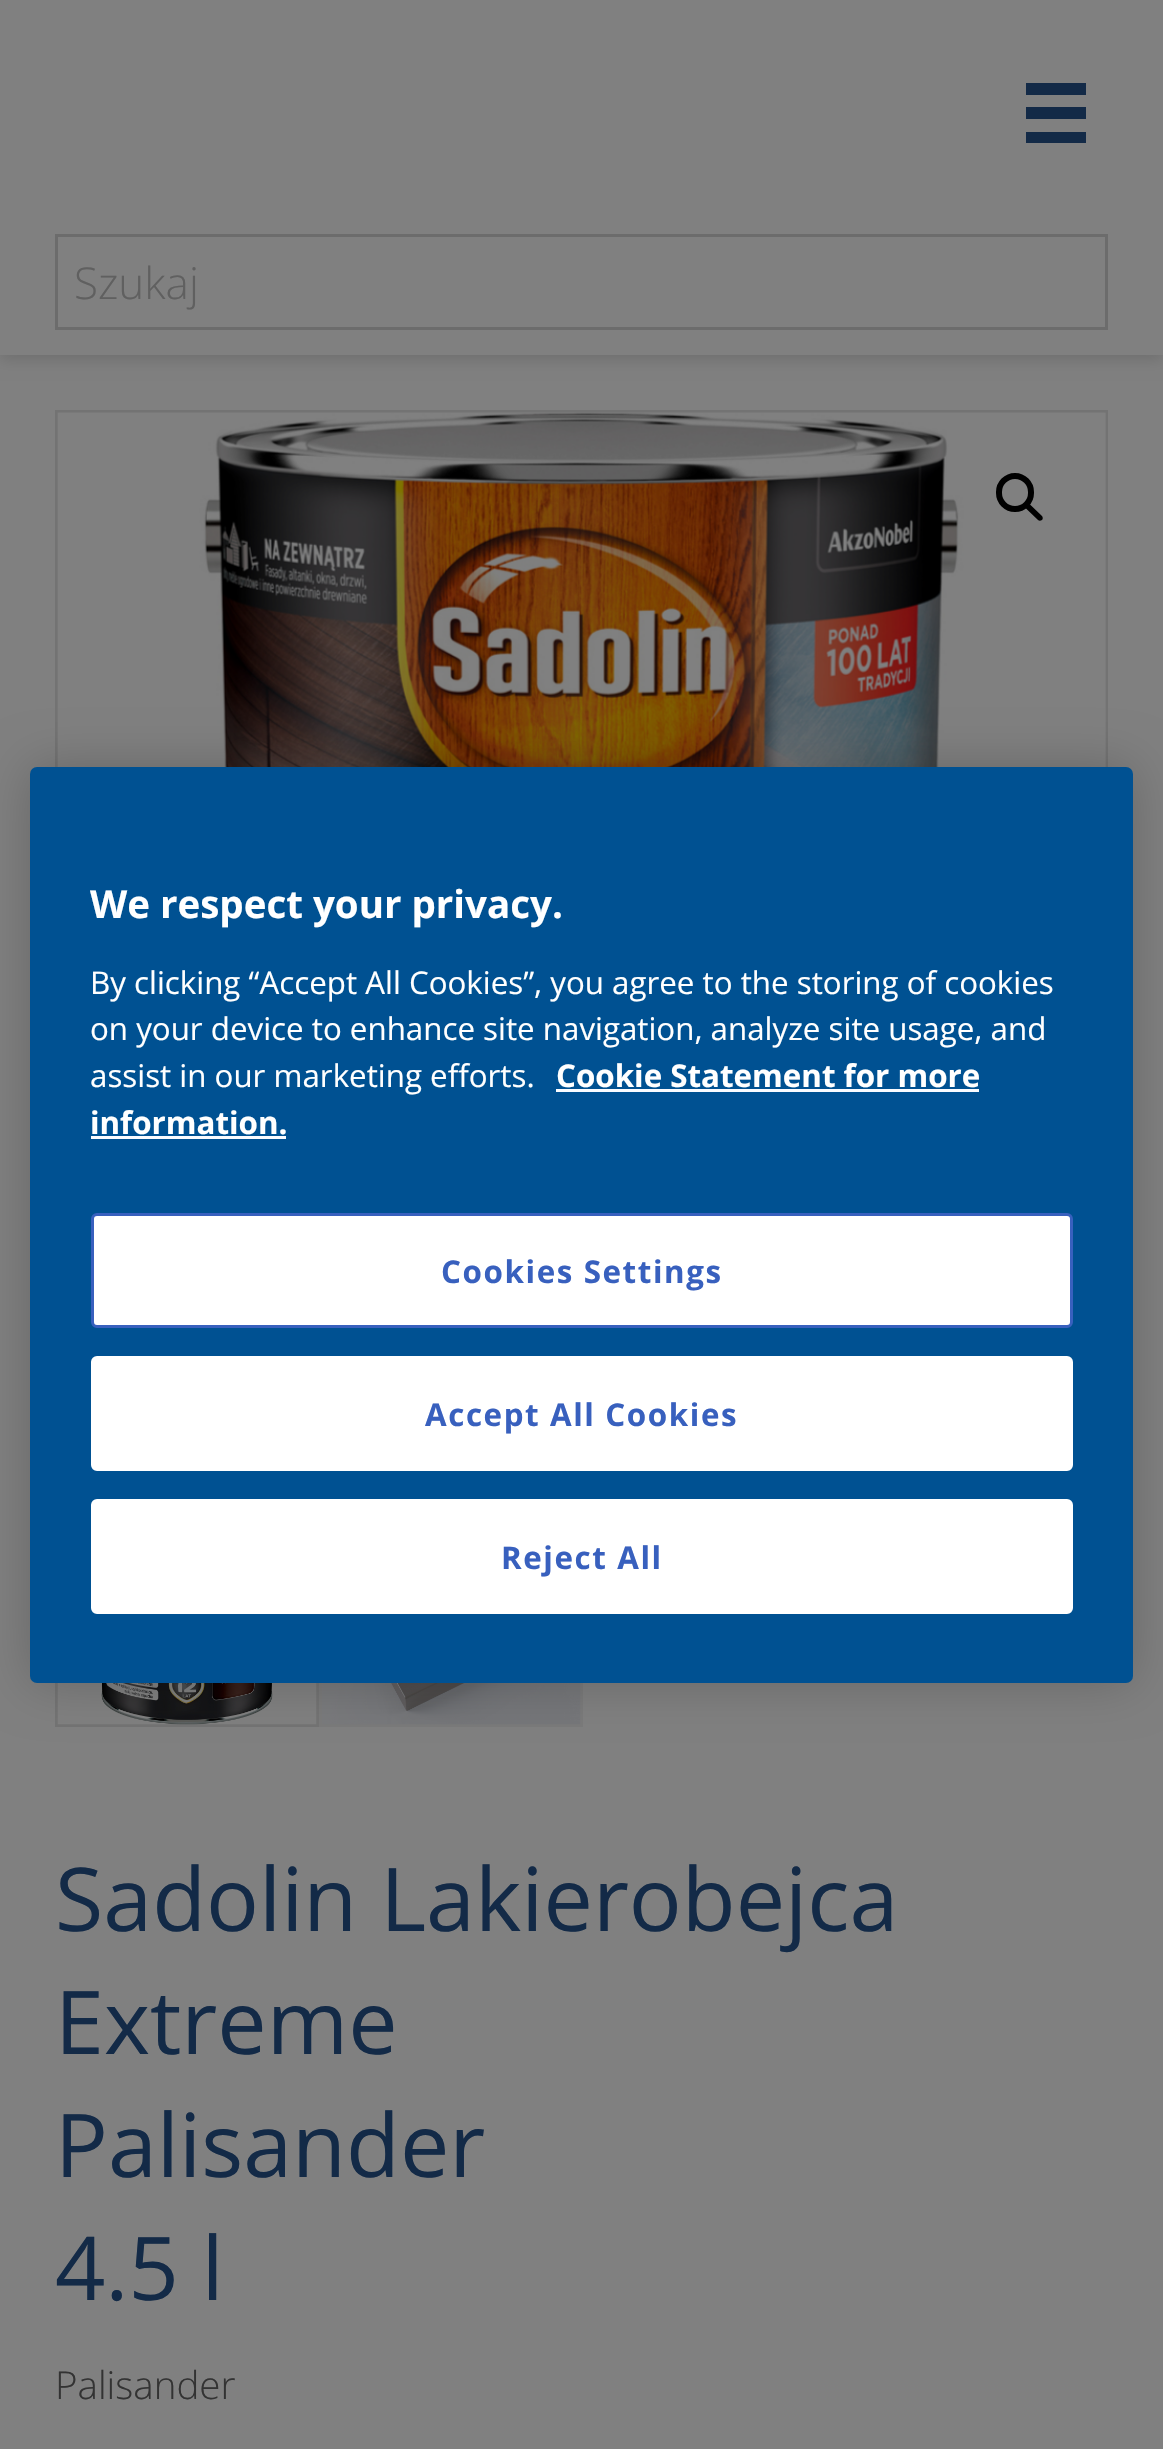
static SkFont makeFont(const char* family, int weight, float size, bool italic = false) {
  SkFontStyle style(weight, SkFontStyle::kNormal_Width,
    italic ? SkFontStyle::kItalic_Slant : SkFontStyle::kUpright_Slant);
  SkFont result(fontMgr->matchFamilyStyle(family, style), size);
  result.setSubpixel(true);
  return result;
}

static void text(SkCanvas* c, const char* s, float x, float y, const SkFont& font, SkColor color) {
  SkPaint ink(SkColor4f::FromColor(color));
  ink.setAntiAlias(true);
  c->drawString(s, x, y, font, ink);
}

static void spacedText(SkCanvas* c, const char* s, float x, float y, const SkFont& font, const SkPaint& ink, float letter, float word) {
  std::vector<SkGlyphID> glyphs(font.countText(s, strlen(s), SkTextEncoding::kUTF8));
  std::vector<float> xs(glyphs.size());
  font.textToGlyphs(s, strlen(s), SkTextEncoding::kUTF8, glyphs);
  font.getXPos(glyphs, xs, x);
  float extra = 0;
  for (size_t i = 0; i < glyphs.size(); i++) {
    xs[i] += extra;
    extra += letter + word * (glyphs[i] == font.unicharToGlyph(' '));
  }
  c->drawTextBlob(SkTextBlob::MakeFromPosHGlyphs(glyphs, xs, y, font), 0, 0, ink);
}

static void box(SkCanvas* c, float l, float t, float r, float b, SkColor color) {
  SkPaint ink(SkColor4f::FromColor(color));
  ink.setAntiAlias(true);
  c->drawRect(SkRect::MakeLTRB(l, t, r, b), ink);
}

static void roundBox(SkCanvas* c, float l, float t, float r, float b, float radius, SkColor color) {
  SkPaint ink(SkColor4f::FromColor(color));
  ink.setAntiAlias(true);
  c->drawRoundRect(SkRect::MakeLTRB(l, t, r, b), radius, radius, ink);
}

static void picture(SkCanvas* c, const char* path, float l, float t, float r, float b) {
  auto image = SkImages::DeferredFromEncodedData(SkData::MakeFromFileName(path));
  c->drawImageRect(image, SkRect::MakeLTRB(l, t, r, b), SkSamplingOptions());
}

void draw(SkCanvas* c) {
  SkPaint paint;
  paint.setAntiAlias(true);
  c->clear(0xff808080);
  paint.setColor(0x21000000);
  paint.setMaskFilter(SkMaskFilter::MakeBlur(kNormal_SkBlurStyle, 7));
  c->drawRect(SkRect::MakeLTRB(0, 6, 1163, 360), paint);
  paint.setMaskFilter(nullptr);
  box(c, 0, 0, 1163, 355, 0xff808080);
  box(c, 1026, 83, 1086, 95, 0xff132a47);
  box(c, 1026, 107, 1086, 119, 0xff132a47);
  box(c, 1026, 132, 1086, 143, 0xff132a47);
  paint.setStyle(SkPaint::kStroke_Style);
  paint.setStrokeWidth(3);
  paint.setColor(0xff6c6c6c);
  c->drawRect(SkRect::MakeLTRB(56.5f, 235.5f, 1106.5f, 328.5f), paint);
  SkFont face1 = makeFont("Open Sans", 300, 44);
  text(c, "Szukaj", 74, 299, face1, 0xff606060);
  paint.setColor(0xff737373);
  c->drawRect(SkRect::MakeLTRB(56.5f, 411.5f, 1106.5f, 1461.5f), paint);
  picture(c, "img_01.png", 57, 412, 1106, 767);
  paint.setStrokeWidth(6);
  paint.setColor(0xff000000);
  c->drawRoundRect(SkRect::MakeLTRB(999, 476, 1031, 509), 16, 16, paint);
  paint.setStyle(SkPaint::kFill_Style);
  c->drawPath(SkPathBuilder().moveTo(1026, 504.5f).cubicTo(1027.5f, 503.5f, 1029, 503.5f, 1030, 504.5f).lineTo(1042, 516).cubicTo(1043, 517.5f, 1043, 519, 1042, 520).cubicTo(1040.5f, 521, 1039, 521, 1038, 520).lineTo(1026, 508.5f).cubicTo(1025, 507.5f, 1025, 505.5f, 1026, 504.5f).close().detach(), paint);
  paint.setStyle(SkPaint::kStroke_Style);
  paint.setStrokeWidth(3);
  paint.setColor(0xff737373);
  c->drawRect(SkRect::MakeLTRB(56.5f, 1464.5f, 317.5f, 1725.5f), paint);
  picture(c, "img_02.png", 57, 1683, 317, 1725);
  paint.setColor(0xff7a7a7a);
  c->drawRect(SkRect::MakeLTRB(320.5f, 1464.5f, 581.5f, 1725.5f), paint);
  picture(c, "img_03.png", 322, 1683, 581, 1725);
  SkFont face2 = makeFont("Open Sans", 400, 88);
  text(c, "Sadolin Lakierobejca", 55, 1931, face2, 0xff132a47);
  text(c, "Extreme", 55, 2054, face2, 0xff132a47);
  text(c, "Palisander", 55, 2177, face2, 0xff132a47);
  text(c, "4.5 l", 55, 2300, face2, 0xff132a47);
  SkFont face3 = makeFont("Open Sans", 300, 38.5f);
  text(c, "Palisander", 55, 2399, face3, 0xff333333);
  paint.setStyle(SkPaint::kFill_Style);
  paint.setColor(0x33000000);
  paint.setMaskFilter(SkMaskFilter::MakeBlur(kNormal_SkBlurStyle, 25));
  c->drawRoundRect(SkRect::MakeLTRB(30, 767, 1133, 1683), 7, 7, paint);
  paint.setMaskFilter(nullptr);
  roundBox(c, 30, 767, 1133, 1683, 7, 0xff005192);
  SkFont face4 = makeFont("Open Sans", 700, 38.5f);
  text(c, "We respect your privacy.", 90, 918, face4, 0xffffffff);
  SkFont face5 = makeFont("Open Sans", 400, 31.3f);
  text(c, "By clicking “Accept All Cookies”, you agree to the storing of cookies", 90, 994, face5, 0xffffffff);
  text(c, "on your device to enhance site navigation, analyze site usage, and", 90, 1040, face5, 0xffffffff);
  text(c, "assist in our marketing efforts.", 90, 1087, face5, 0xffffffff);
  SkFont face6 = makeFont("Open Sans", 700, 31.3f);
  text(c, "Cookie Statement for more", 556, 1087, face6, 0xffffffff);
  box(c, 556, 1089, 979, 1092, 0xfffafbff);
  text(c, "information.", 90, 1134, face6, 0xffffffff);
  box(c, 91, 1136, 286, 1139, 0xfffafbff);
  paint.setColor(0xffffffff);
  c->drawRoundRect(SkRect::MakeLTRB(92.5f, 1214.5f, 1071.5f, 1326.5f), 4.5f, 4.5f, paint);
  paint.setStyle(SkPaint::kStroke_Style);
  paint.setColor(0xff3860be);
  c->drawRoundRect(SkRect::MakeLTRB(92.5f, 1214.5f, 1071.5f, 1326.5f), 4.5f, 4.5f, paint);
  paint.setStyle(SkPaint::kFill_Style);
  spacedText(c, "Cookies Settings", 441, 1283, face6, paint, 1.6f, 0);
  paint.setColor(0xffffffff);
  c->drawRoundRect(SkRect::MakeLTRB(92.5f, 1357.5f, 1071.5f, 1469.5f), 4.5f, 4.5f, paint);
  paint.setStyle(SkPaint::kStroke_Style);
  c->drawRoundRect(SkRect::MakeLTRB(92.5f, 1357.5f, 1071.5f, 1469.5f), 4.5f, 4.5f, paint);
  paint.setStyle(SkPaint::kFill_Style);
  paint.setColor(0xff3860be);
  spacedText(c, "Accept All Cookies", 425, 1426, face6, paint, 1.6f, 0);
  paint.setColor(0xffffffff);
  c->drawRoundRect(SkRect::MakeLTRB(92.5f, 1500.5f, 1071.5f, 1612.5f), 4.5f, 4.5f, paint);
  paint.setStyle(SkPaint::kStroke_Style);
  c->drawRoundRect(SkRect::MakeLTRB(92.5f, 1500.5f, 1071.5f, 1612.5f), 4.5f, 4.5f, paint);
  paint.setStyle(SkPaint::kFill_Style);
  paint.setColor(0xff3860be);
  spacedText(c, "Reject All", 501, 1569, face6, paint, 1.6f, 0);
}
